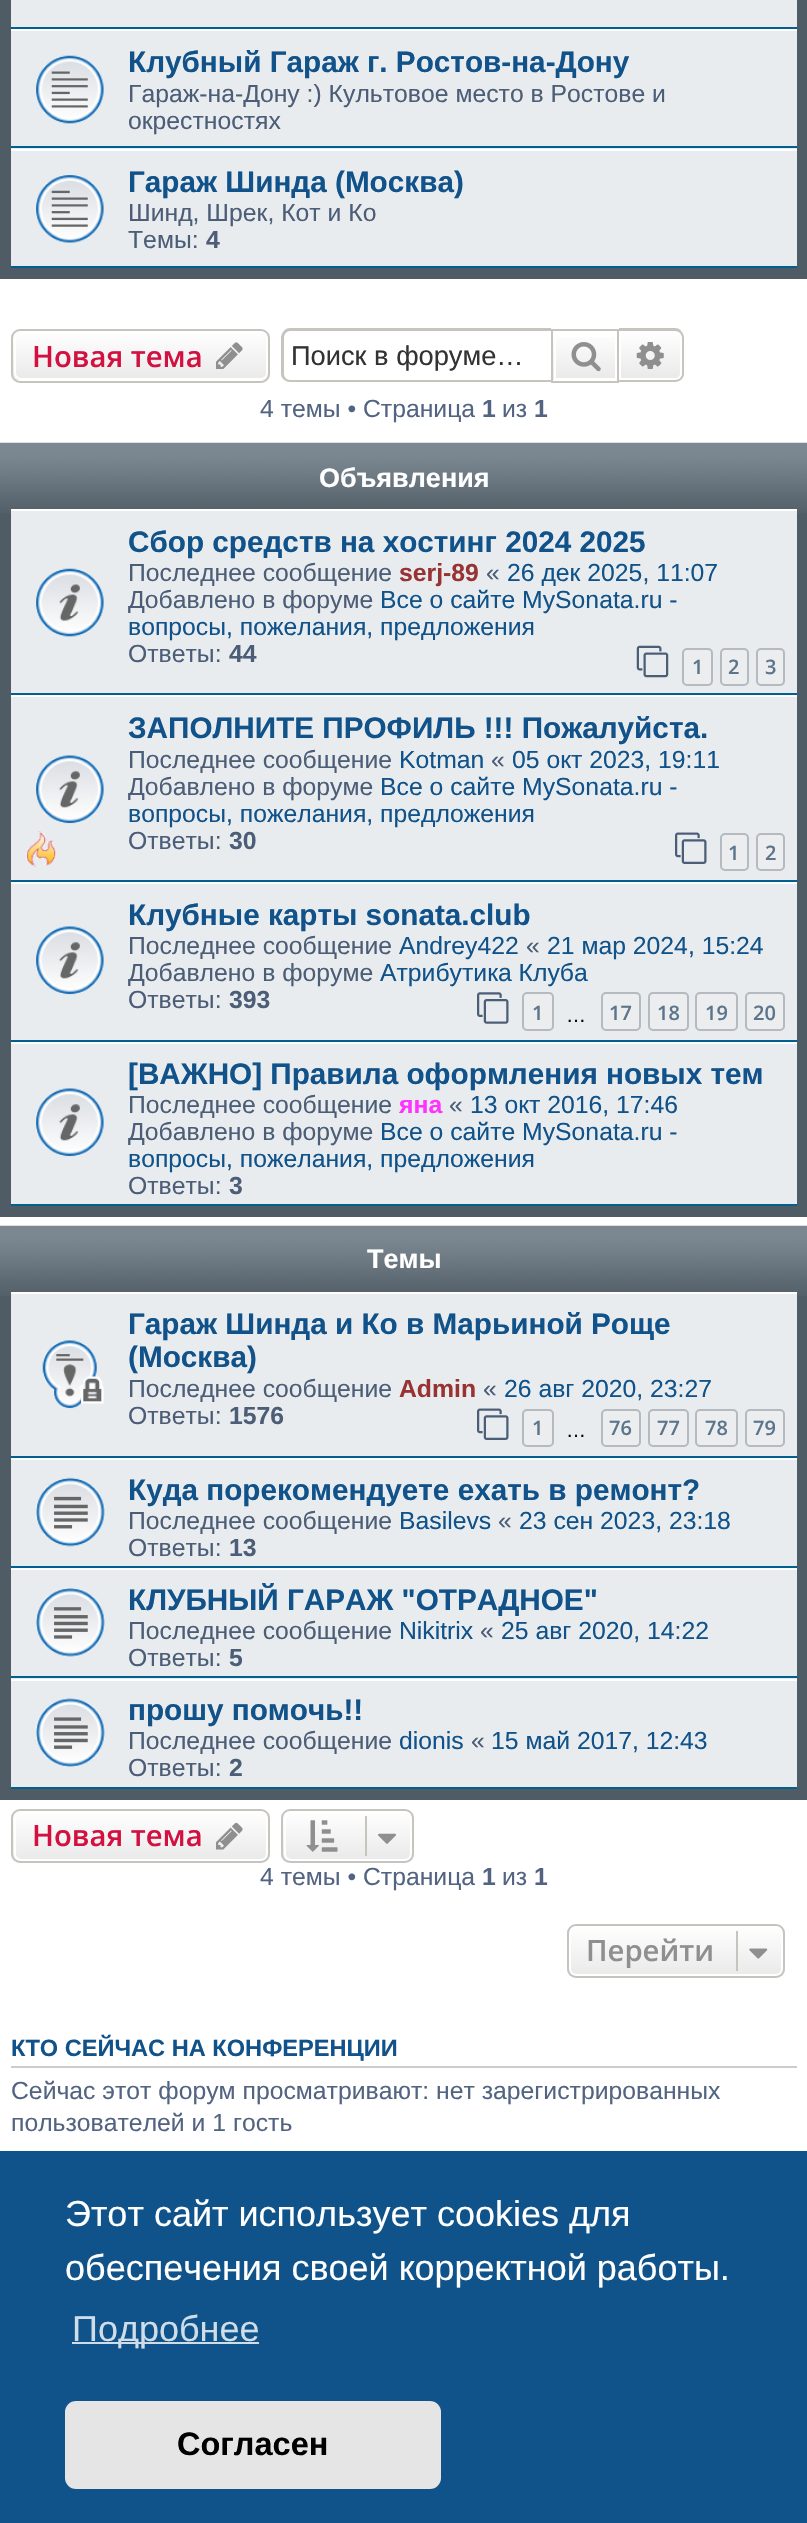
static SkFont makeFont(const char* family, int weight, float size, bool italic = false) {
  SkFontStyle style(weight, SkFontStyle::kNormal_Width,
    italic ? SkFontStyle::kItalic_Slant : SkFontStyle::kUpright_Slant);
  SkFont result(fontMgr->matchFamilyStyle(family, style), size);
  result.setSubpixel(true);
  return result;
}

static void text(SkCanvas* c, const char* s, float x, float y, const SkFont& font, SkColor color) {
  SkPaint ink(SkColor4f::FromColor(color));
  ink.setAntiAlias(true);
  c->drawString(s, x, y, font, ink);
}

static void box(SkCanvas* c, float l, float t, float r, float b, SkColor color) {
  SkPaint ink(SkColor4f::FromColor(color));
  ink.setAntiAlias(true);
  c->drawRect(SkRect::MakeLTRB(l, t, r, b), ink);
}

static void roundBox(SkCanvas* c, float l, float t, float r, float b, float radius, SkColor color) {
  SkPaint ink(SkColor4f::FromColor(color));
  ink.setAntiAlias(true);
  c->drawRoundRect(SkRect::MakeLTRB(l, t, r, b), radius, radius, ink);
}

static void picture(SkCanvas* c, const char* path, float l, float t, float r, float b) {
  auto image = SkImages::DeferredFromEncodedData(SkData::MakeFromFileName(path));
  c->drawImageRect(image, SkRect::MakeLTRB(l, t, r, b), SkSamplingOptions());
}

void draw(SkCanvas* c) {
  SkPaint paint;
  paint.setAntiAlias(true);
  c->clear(0xffffffff);
  box(c, 0, 0, 807, 279, 0xff505c65);
  box(c, 11, 0, 797, 27, 0xffe8ecee);
  box(c, 11, 27, 797, 29, 0xff00608f);
  box(c, 11, 31, 797, 149, 0xffe8ecee);
  box(c, 11, 29, 797, 31, 0xffffffff);
  box(c, 11, 146, 797, 148, 0xff00608f);
  picture(c, "img_01.png", 36, 55, 104, 124);
  SkFont face1 = makeFont("Liberation Sans", 700, 29.7f);
  text(c, "Клубный Гараж г. Ростов-на-Дону", 128, 72, face1, 0xff105289);
  SkFont face2 = makeFont("Liberation Sans", 400, 24.75f);
  text(c, "Гараж-на-Дону :) Культовое место в Ростове и", 128, 102, face2, 0xff4c5d77);
  text(c, "окрестностях", 128, 129, face2, 0xff4c5d77);
  box(c, 11, 151, 797, 266, 0xffe8ecee);
  box(c, 11, 149, 797, 151, 0xffffffff);
  box(c, 11, 266, 797, 268, 0xff00608f);
  picture(c, "img_02.png", 36, 175, 104, 243);
  text(c, "Гараж Шинда (Москва)", 128, 192, face1, 0xff105289);
  text(c, "Шинд, Шрек, Кот и Ко", 128, 221, face2, 0xff4c5d77);
  text(c, "Темы:", 128, 248, face2, 0xff4c5d77);
  SkFont face3 = makeFont("Liberation Sans", 700, 24.75f);
  text(c, "4", 206, 248, face3, 0xff4c5d77);
  c->save();
  c->clipPath(SkPathBuilder().moveTo(20, 329).lineTo(261, 329).cubicTo(266, 329, 270, 333, 270, 338).lineTo(270, 374).cubicTo(270, 379, 266, 383, 261, 383).lineTo(20, 383).cubicTo(15, 383, 11, 379, 11, 374).lineTo(11, 338).cubicTo(11, 333, 15, 329, 20, 329).close().detach(), true);
  {
    const SkColor colors[] = {0xffffffff, 0xffe9e9e9};
    const float stops[] = {0, 1};
    const SkPoint ends[] = {{141, 331}, {141, 380}};
    paint.setShader(SkGradientShader::MakeLinear(ends, colors, stops, 2, SkTileMode::kClamp));
    paint.setAlpha(255);
  }
  c->drawRect(SkRect::MakeLTRB(11, 331, 270, 380), paint);
  c->restore();
  paint.setStyle(SkPaint::kStroke_Style);
  paint.setStrokeWidth(2);
  paint.setShader(nullptr);
  paint.setColor(0xffffffff);
  c->drawRoundRect(SkRect::MakeLTRB(15, 332, 267, 379), 6, 6, paint);
  paint.setColor(0xffc7c3bf);
  c->drawRoundRect(SkRect::MakeLTRB(12, 330, 269, 382), 8, 8, paint);
  SkFont face4 = makeFont("Open Sans", 600, 29.25f);
  text(c, "Новая тема", 32, 367, face4, 0xffd31141);
  picture(c, "img_03.png", 216, 342, 243, 369);
  paint.setStyle(SkPaint::kFill_Style);
  c->drawPath(SkPathBuilder(SkPathFillType::kEvenOdd).moveTo(290, 328).lineTo(551, 328).lineTo(551, 382).lineTo(290, 382).cubicTo(285, 382, 281, 378, 281, 374).lineTo(281, 338).cubicTo(281, 333, 285, 328, 290, 328).close().moveTo(290, 331).lineTo(551, 331).lineTo(551, 380).lineTo(290, 380).cubicTo(287, 380, 284, 377, 284, 374).lineTo(284, 338).cubicTo(284, 334, 287, 331, 290, 331).close().detach(), paint);
  SkFont face5 = makeFont("Liberation Sans", 400, 27.25f);
  text(c, "Поиск в форуме…", 291, 365, face5, 0xff333333);
  {
    const SkColor colors[] = {0xffffffff, 0xffe9e9e9};
    const float stops[] = {0, 1};
    const SkPoint ends[] = {{585, 331}, {585, 380}};
    paint.setShader(SkGradientShader::MakeLinear(ends, colors, stops, 2, SkTileMode::kClamp));
    paint.setAlpha(255);
  }
  c->drawRect(SkRect::MakeLTRB(553, 337, 615, 380), paint);
  paint.setStyle(SkPaint::kStroke_Style);
  paint.setShader(nullptr);
  paint.setColor(0xffffffff);
  c->drawRect(SkRect::MakeLTRB(555, 332, 616, 379), paint);
  paint.setColor(0xffc7c3bf);
  c->drawRect(SkRect::MakeLTRB(552, 330, 618, 382), paint);
  picture(c, "img_04.png", 571, 342, 601, 372);
  paint.setStyle(SkPaint::kFill_Style);
  {
    const SkColor colors[] = {0xffffffff, 0xffe9e9e9};
    const float stops[] = {0, 1};
    const SkPoint ends[] = {{650, 331}, {650, 380}};
    paint.setShader(SkGradientShader::MakeLinear(ends, colors, stops, 2, SkTileMode::kClamp));
    paint.setAlpha(255);
  }
  c->drawPath(SkPathBuilder().moveTo(620, 332).lineTo(675, 332).cubicTo(678.5f, 332, 681, 334.5f, 681, 338).lineTo(681, 373).cubicTo(681, 376.5f, 678.5f, 379, 675, 379).lineTo(620, 379).close().detach(), paint);
  paint.setStyle(SkPaint::kStroke_Style);
  paint.setShader(nullptr);
  paint.setColor(0xffffffff);
  c->drawPath(SkPathBuilder().moveTo(620, 332).lineTo(675, 332).cubicTo(678.5f, 332, 681, 334.5f, 681, 338).lineTo(681, 373).cubicTo(681, 376.5f, 678.5f, 379, 675, 379).lineTo(620, 379).close().detach(), paint);
  paint.setStyle(SkPaint::kFill_Style);
  paint.setColor(0xffc7c3bf);
  c->drawPath(SkPathBuilder(SkPathFillType::kEvenOdd).moveTo(619, 328).lineTo(675, 328).cubicTo(680, 328, 684, 333, 684, 338).lineTo(684, 374).cubicTo(684, 378, 680, 382, 675, 382).lineTo(619, 382).close().moveTo(619, 331).lineTo(675, 331).cubicTo(679, 331, 682, 334, 682, 338).lineTo(682, 374).cubicTo(682, 377, 679, 380, 675, 380).lineTo(619, 380).close().detach(), paint);
  picture(c, "img_05.png", 636, 342, 664, 369);
  text(c, "4 темы • Страница", 260, 417, face2, 0xff536482);
  text(c, "1", 482, 417, face3, 0xff536482);
  text(c, "из", 502, 417, face2, 0xff536482);
  text(c, "1", 534, 417, face3, 0xff536482);
  box(c, 0, 513, 807, 1217, 0xff505c65);
  picture(c, "img_06.png", 0, 442, 807, 513);
  SkFont face6 = makeFont("Liberation Sans", 700, 27);
  text(c, "Объявления", 319, 487, face6, 0xffffffff);
  box(c, 11, 511, 797, 693, 0xffe8ecee);
  box(c, 11, 509, 797, 511, 0xffffffff);
  box(c, 11, 693, 797, 695, 0xff00608f);
  picture(c, "img_07.png", 36, 568, 104, 637);
  text(c, "Сбор средств на хостинг 2024 2025", 128, 552, face1, 0xff105289);
  text(c, "Последнее сообщение", 128, 581, face2, 0xff4c5d77);
  text(c, "serj-89", 399, 581, face3, 0xff993333);
  text(c, "«", 486, 581, face2, 0xff4c5d77);
  text(c, "26 дек 2025, 11:07", 507, 581, face2, 0xff105289);
  text(c, "Добавлено в форуме", 128, 608, face2, 0xff4c5d77);
  text(c, "Все о сайте MySonata.ru -", 380, 608, face2, 0xff105289);
  text(c, "вопросы, пожелания, предложения", 128, 635, face2, 0xff105289);
  text(c, "Ответы:", 128, 662, face2, 0xff4c5d77);
  text(c, "44", 229, 662, face3, 0xff4c5d77);
  picture(c, "img_08.png", 636, 645, 669, 678);
  paint.setColor(0xffecedee);
  c->drawRoundRect(SkRect::MakeLTRB(683, 649, 712, 685), 4, 4, paint);
  paint.setStyle(SkPaint::kStroke_Style);
  paint.setColor(0xffb4bac0);
  c->drawRoundRect(SkRect::MakeLTRB(683, 649, 712, 685), 4, 4, paint);
  SkFont face7 = makeFont("Open Sans", 600, 20);
  text(c, "1", 692, 674, face7, 0xff5c758c);
  paint.setStyle(SkPaint::kFill_Style);
  paint.setColor(0xffecedee);
  c->drawRoundRect(SkRect::MakeLTRB(721, 649, 748, 685), 4, 4, paint);
  paint.setStyle(SkPaint::kStroke_Style);
  paint.setColor(0xffb4bac0);
  c->drawRoundRect(SkRect::MakeLTRB(721, 649, 748, 685), 4, 4, paint);
  text(c, "2", 728, 674, face7, 0xff5c758c);
  paint.setStyle(SkPaint::kFill_Style);
  paint.setColor(0xffecedee);
  c->drawRoundRect(SkRect::MakeLTRB(757, 649, 784, 685), 4, 4, paint);
  paint.setStyle(SkPaint::kStroke_Style);
  paint.setColor(0xffb4bac0);
  c->drawRoundRect(SkRect::MakeLTRB(757, 649, 784, 685), 4, 4, paint);
  text(c, "3", 765, 674, face7, 0xff5c758c);
  box(c, 11, 697, 797, 880, 0xffe8ecee);
  box(c, 11, 695, 797, 697, 0xffffffff);
  box(c, 11, 880, 797, 882, 0xff00608f);
  picture(c, "img_09.png", 36, 755, 104, 824);
  picture(c, "img_10.png", 26, 831, 57, 867);
  text(c, "ЗАПОЛНИТЕ ПРОФИЛЬ !!! Пожалуйста.", 128, 738, face1, 0xff105289);
  text(c, "Последнее сообщение", 128, 768, face2, 0xff4c5d77);
  text(c, "Kotman", 399, 768, face2, 0xff105289);
  text(c, "«", 491, 768, face2, 0xff4c5d77);
  text(c, "05 окт 2023, 19:11", 512, 768, face2, 0xff105289);
  text(c, "Добавлено в форуме", 128, 795, face2, 0xff4c5d77);
  text(c, "Все о сайте MySonata.ru -", 380, 795, face2, 0xff105289);
  text(c, "вопросы, пожелания, предложения", 128, 822, face2, 0xff105289);
  text(c, "Ответы:", 128, 849, face2, 0xff4c5d77);
  text(c, "30", 229, 849, face3, 0xff4c5d77);
  picture(c, "img_11.png", 675, 832, 707, 864);
  paint.setStyle(SkPaint::kFill_Style);
  paint.setColor(0xffecedee);
  c->drawRoundRect(SkRect::MakeLTRB(721, 834, 748, 870), 4, 4, paint);
  paint.setStyle(SkPaint::kStroke_Style);
  paint.setColor(0xffb4bac0);
  c->drawRoundRect(SkRect::MakeLTRB(721, 834, 748, 870), 4, 4, paint);
  text(c, "1", 728, 860, face7, 0xff5c758c);
  paint.setStyle(SkPaint::kFill_Style);
  paint.setColor(0xffecedee);
  c->drawRoundRect(SkRect::MakeLTRB(757, 834, 784, 870), 4, 4, paint);
  paint.setStyle(SkPaint::kStroke_Style);
  paint.setColor(0xffb4bac0);
  c->drawRoundRect(SkRect::MakeLTRB(757, 834, 784, 870), 4, 4, paint);
  text(c, "2", 765, 860, face7, 0xff5c758c);
  box(c, 11, 884, 797, 1040, 0xffe8ecee);
  box(c, 11, 882, 797, 884, 0xffffffff);
  box(c, 11, 1040, 797, 1042, 0xff00608f);
  picture(c, "img_09.png", 36, 926, 104, 995);
  text(c, "Клубные карты sonata.club", 128, 925, face1, 0xff105289);
  text(c, "Последнее сообщение", 128, 954, face2, 0xff4c5d77);
  text(c, "Andrey422", 399, 954, face2, 0xff105289);
  text(c, "«", 526, 954, face2, 0xff4c5d77);
  text(c, "21 мар 2024, 15:24", 547, 954, face2, 0xff105289);
  text(c, "Добавлено в форуме", 128, 981, face2, 0xff4c5d77);
  text(c, "Атрибутика Клуба", 380, 981, face2, 0xff105289);
  text(c, "Ответы:", 128, 1008, face2, 0xff4c5d77);
  text(c, "393", 229, 1008, face3, 0xff4c5d77);
  picture(c, "img_12.png", 477, 992, 509, 1024);
  paint.setStyle(SkPaint::kFill_Style);
  paint.setColor(0xffecedee);
  c->drawRoundRect(SkRect::MakeLTRB(523, 993, 553, 1030), 4, 4, paint);
  paint.setStyle(SkPaint::kStroke_Style);
  paint.setColor(0xffb4bac0);
  c->drawRoundRect(SkRect::MakeLTRB(523, 993, 553, 1030), 4, 4, paint);
  text(c, "1", 532, 1020, face7, 0xff5c758c);
  SkFont face8 = makeFont("Liberation Sans", 400, 20);
  text(c, "…", 566, 1022, face8, 0xff000000);
  paint.setStyle(SkPaint::kFill_Style);
  paint.setColor(0xffecedee);
  c->drawRoundRect(SkRect::MakeLTRB(602, 993, 640, 1030), 4, 4, paint);
  paint.setStyle(SkPaint::kStroke_Style);
  paint.setColor(0xffb4bac0);
  c->drawRoundRect(SkRect::MakeLTRB(602, 993, 640, 1030), 4, 4, paint);
  text(c, "17", 609, 1020, face7, 0xff5c758c);
  paint.setStyle(SkPaint::kFill_Style);
  paint.setColor(0xffecedee);
  c->drawRoundRect(SkRect::MakeLTRB(649, 993, 688, 1030), 4, 4, paint);
  paint.setStyle(SkPaint::kStroke_Style);
  paint.setColor(0xffb4bac0);
  c->drawRoundRect(SkRect::MakeLTRB(649, 993, 688, 1030), 4, 4, paint);
  text(c, "18", 657, 1020, face7, 0xff5c758c);
  paint.setStyle(SkPaint::kFill_Style);
  paint.setColor(0xffecedee);
  c->drawRoundRect(SkRect::MakeLTRB(696, 993, 737, 1030), 4, 4, paint);
  paint.setStyle(SkPaint::kStroke_Style);
  paint.setColor(0xffb4bac0);
  c->drawRoundRect(SkRect::MakeLTRB(696, 993, 737, 1030), 4, 4, paint);
  text(c, "19", 705, 1020, face7, 0xff5c758c);
  paint.setStyle(SkPaint::kFill_Style);
  paint.setColor(0xffecedee);
  c->drawRoundRect(SkRect::MakeLTRB(746, 993, 784, 1030), 4, 4, paint);
  paint.setStyle(SkPaint::kStroke_Style);
  paint.setColor(0xffb4bac0);
  c->drawRoundRect(SkRect::MakeLTRB(746, 993, 784, 1030), 4, 4, paint);
  text(c, "20", 753, 1020, face7, 0xff5c758c);
  box(c, 11, 1044, 797, 1204, 0xffe8ecee);
  box(c, 11, 1042, 797, 1044, 0xffffffff);
  box(c, 11, 1204, 797, 1206, 0xff00608f);
  picture(c, "img_13.png", 36, 1088, 104, 1157);
  text(c, "[ВАЖНО] Правила оформления новых тем", 128, 1084, face1, 0xff105289);
  text(c, "Последнее сообщение", 128, 1113, face2, 0xff4c5d77);
  text(c, "яна", 399, 1113, face3, 0xffff33ff);
  text(c, "«", 449, 1113, face2, 0xff4c5d77);
  text(c, "13 окт 2016, 17:46", 470, 1113, face2, 0xff105289);
  text(c, "Добавлено в форуме", 128, 1140, face2, 0xff4c5d77);
  text(c, "Все о сайте MySonata.ru -", 380, 1140, face2, 0xff105289);
  text(c, "вопросы, пожелания, предложения", 128, 1167, face2, 0xff105289);
  text(c, "Ответы:", 128, 1194, face2, 0xff4c5d77);
  text(c, "3", 229, 1194, face3, 0xff4c5d77);
  box(c, 0, 1296, 807, 1800, 0xff505c65);
  picture(c, "img_06.png", 0, 1225, 807, 1296);
  text(c, "Темы", 367, 1268, face6, 0xffffffff);
  box(c, 11, 1294, 797, 1456, 0xffe8ecee);
  box(c, 11, 1292, 797, 1294, 0xffffffff);
  box(c, 11, 1456, 797, 1458, 0xff00608f);
  picture(c, "img_14.png", 42, 1340, 104, 1409);
  text(c, "Гараж Шинда и Ко в Марьиной Роще", 128, 1334, face1, 0xff105289);
  text(c, "(Москва)", 128, 1367, face1, 0xff105289);
  text(c, "Последнее сообщение", 128, 1397, face2, 0xff4c5d77);
  text(c, "Admin", 399, 1397, face3, 0xff993333);
  text(c, "«", 483, 1397, face2, 0xff4c5d77);
  text(c, "26 авг 2020, 23:27", 504, 1397, face2, 0xff105289);
  text(c, "Ответы:", 128, 1424, face2, 0xff4c5d77);
  text(c, "1576", 229, 1424, face3, 0xff4c5d77);
  picture(c, "img_11.png", 477, 1408, 509, 1440);
  paint.setStyle(SkPaint::kFill_Style);
  paint.setColor(0xffecedee);
  c->drawRoundRect(SkRect::MakeLTRB(523, 1410, 553, 1446), 4, 4, paint);
  paint.setStyle(SkPaint::kStroke_Style);
  paint.setColor(0xffb4bac0);
  c->drawRoundRect(SkRect::MakeLTRB(523, 1410, 553, 1446), 4, 4, paint);
  text(c, "1", 532, 1435, face7, 0xff5c758c);
  text(c, "…", 566, 1437, face8, 0xff000000);
  paint.setStyle(SkPaint::kFill_Style);
  paint.setColor(0xffecedee);
  c->drawRoundRect(SkRect::MakeLTRB(602, 1410, 640, 1446), 4, 4, paint);
  paint.setStyle(SkPaint::kStroke_Style);
  paint.setColor(0xffb4bac0);
  c->drawRoundRect(SkRect::MakeLTRB(602, 1410, 640, 1446), 4, 4, paint);
  text(c, "76", 609, 1435, face7, 0xff5c758c);
  paint.setStyle(SkPaint::kFill_Style);
  paint.setColor(0xffecedee);
  c->drawRoundRect(SkRect::MakeLTRB(649, 1410, 688, 1446), 4, 4, paint);
  paint.setStyle(SkPaint::kStroke_Style);
  paint.setColor(0xffb4bac0);
  c->drawRoundRect(SkRect::MakeLTRB(649, 1410, 688, 1446), 4, 4, paint);
  text(c, "77", 657, 1435, face7, 0xff5c758c);
  paint.setStyle(SkPaint::kFill_Style);
  paint.setColor(0xffecedee);
  c->drawRoundRect(SkRect::MakeLTRB(696, 1410, 737, 1446), 4, 4, paint);
  paint.setStyle(SkPaint::kStroke_Style);
  paint.setColor(0xffb4bac0);
  c->drawRoundRect(SkRect::MakeLTRB(696, 1410, 737, 1446), 4, 4, paint);
  text(c, "78", 705, 1435, face7, 0xff5c758c);
  paint.setStyle(SkPaint::kFill_Style);
  paint.setColor(0xffecedee);
  c->drawRoundRect(SkRect::MakeLTRB(746, 1410, 784, 1446), 4, 4, paint);
  paint.setStyle(SkPaint::kStroke_Style);
  paint.setColor(0xffb4bac0);
  c->drawRoundRect(SkRect::MakeLTRB(746, 1410, 784, 1446), 4, 4, paint);
  text(c, "79", 753, 1435, face7, 0xff5c758c);
  box(c, 11, 1460, 797, 1566, 0xffe8ecee);
  box(c, 11, 1458, 797, 1460, 0xffffffff);
  box(c, 11, 1566, 797, 1568, 0xff00608f);
  picture(c, "img_15.png", 36, 1477, 105, 1547);
  text(c, "Куда порекомендуете ехать в ремонт?", 128, 1500, face1, 0xff105289);
  text(c, "Последнее сообщение", 128, 1529, face2, 0xff4c5d77);
  text(c, "Basilevs", 399, 1529, face2, 0xff105289);
  text(c, "«", 498, 1529, face2, 0xff4c5d77);
  text(c, "23 сен 2023, 23:18", 519, 1529, face2, 0xff105289);
  text(c, "Ответы:", 128, 1556, face2, 0xff4c5d77);
  text(c, "13", 229, 1556, face3, 0xff4c5d77);
  box(c, 11, 1570, 797, 1679, 0xffe8ecee);
  box(c, 11, 1568, 797, 1570, 0xffffffff);
  box(c, 11, 1676, 797, 1678, 0xff00608f);
  picture(c, "img_16.png", 36, 1588, 105, 1657);
  text(c, "КЛУБНЫЙ ГАРАЖ \"ОТРАДНОЕ\"", 128, 1610, face1, 0xff105289);
  text(c, "Последнее сообщение", 128, 1639, face2, 0xff4c5d77);
  text(c, "Nikitrix", 399, 1639, face2, 0xff105289);
  text(c, "«", 480, 1639, face2, 0xff4c5d77);
  text(c, "25 авг 2020, 14:22", 501, 1639, face2, 0xff105289);
  text(c, "Ответы:", 128, 1666, face2, 0xff4c5d77);
  text(c, "5", 229, 1666, face3, 0xff4c5d77);
  box(c, 11, 1681, 797, 1787, 0xffe8ecee);
  box(c, 11, 1679, 797, 1681, 0xffffffff);
  box(c, 11, 1787, 797, 1789, 0xff00608f);
  picture(c, "img_17.png", 36, 1698, 105, 1767);
  text(c, "прошу помочь!!", 128, 1720, face1, 0xff105289);
  text(c, "Последнее сообщение", 128, 1749, face2, 0xff4c5d77);
  text(c, "dionis", 399, 1749, face2, 0xff105289);
  text(c, "«", 471, 1749, face2, 0xff4c5d77);
  text(c, "15 май 2017, 12:43", 491, 1749, face2, 0xff105289);
  text(c, "Ответы:", 128, 1776, face2, 0xff4c5d77);
  text(c, "2", 229, 1776, face3, 0xff4c5d77);
  c->save();
  c->clipPath(SkPathBuilder().moveTo(20, 1809).lineTo(261, 1809).cubicTo(266, 1809, 270, 1813, 270, 1818).lineTo(270, 1854).cubicTo(270, 1859, 266, 1863, 261, 1863).lineTo(20, 1863).cubicTo(15, 1863, 11, 1859, 11, 1854).lineTo(11, 1818).cubicTo(11, 1813, 15, 1809, 20, 1809).close().detach(), true);
  paint.setStyle(SkPaint::kFill_Style);
  {
    const SkColor colors[] = {0xffffffff, 0xffe9e9e9};
    const float stops[] = {0, 1};
    const SkPoint ends[] = {{141, 1811}, {141, 1861}};
    paint.setShader(SkGradientShader::MakeLinear(ends, colors, stops, 2, SkTileMode::kClamp));
    paint.setAlpha(255);
  }
  c->drawRect(SkRect::MakeLTRB(11, 1811, 270, 1861), paint);
  c->restore();
  paint.setStyle(SkPaint::kStroke_Style);
  paint.setShader(nullptr);
  paint.setColor(0xffffffff);
  c->drawRoundRect(SkRect::MakeLTRB(15, 1812, 267, 1860), 6, 6, paint);
  paint.setColor(0xffc7c3bf);
  c->drawRoundRect(SkRect::MakeLTRB(12, 1810, 269, 1862), 8, 8, paint);
  text(c, "Новая тема", 32, 1846, face4, 0xffd31141);
  picture(c, "img_18.png", 216, 1822, 243, 1850);
  c->save();
  c->clipPath(SkPathBuilder().moveTo(290, 1809).lineTo(405, 1809).cubicTo(410, 1809, 414, 1813, 414, 1818).lineTo(414, 1854).cubicTo(414, 1859, 410, 1863, 405, 1863).lineTo(290, 1863).cubicTo(285, 1863, 281, 1859, 281, 1854).lineTo(281, 1818).cubicTo(281, 1813, 285, 1809, 290, 1809).close().detach(), true);
  paint.setStyle(SkPaint::kFill_Style);
  {
    const SkColor colors[] = {0xffffffff, 0xffe9e9e9};
    const float stops[] = {0, 1};
    const SkPoint ends[] = {{348, 1811}, {348, 1861}};
    paint.setShader(SkGradientShader::MakeLinear(ends, colors, stops, 2, SkTileMode::kClamp));
    paint.setAlpha(255);
  }
  c->drawRect(SkRect::MakeLTRB(281, 1811, 414, 1861), paint);
  c->restore();
  paint.setStyle(SkPaint::kStroke_Style);
  paint.setShader(nullptr);
  paint.setColor(0xffffffff);
  c->drawRoundRect(SkRect::MakeLTRB(285, 1812, 411, 1860), 6, 6, paint);
  paint.setColor(0xffc7c3bf);
  c->drawRoundRect(SkRect::MakeLTRB(282, 1810, 413, 1862), 8, 8, paint);
  picture(c, "img_19.png", 306, 1820, 338, 1852);
  box(c, 365, 1816, 367, 1856, 0xffc7c3bf);
  picture(c, "img_20.png", 378, 1833, 396, 1844);
  text(c, "4 темы • Страница", 260, 1885, face2, 0xff536482);
  text(c, "1", 482, 1885, face3, 0xff536482);
  text(c, "из", 502, 1885, face2, 0xff536482);
  text(c, "1", 534, 1885, face3, 0xff536482);
  c->save();
  c->clipPath(SkPathBuilder().moveTo(576, 1924).lineTo(776, 1924).cubicTo(781, 1924, 785, 1928, 785, 1933).lineTo(785, 1969).cubicTo(785, 1974, 781, 1978, 776, 1978).lineTo(576, 1978).cubicTo(571, 1978, 567, 1974, 567, 1969).lineTo(567, 1933).cubicTo(567, 1928, 571, 1924, 576, 1924).close().detach(), true);
  paint.setStyle(SkPaint::kFill_Style);
  {
    const SkColor colors[] = {0xffffffff, 0xffe9e9e9};
    const float stops[] = {0, 1};
    const SkPoint ends[] = {{676, 1926}, {676, 1976}};
    paint.setShader(SkGradientShader::MakeLinear(ends, colors, stops, 2, SkTileMode::kClamp));
    paint.setAlpha(255);
  }
  c->drawRect(SkRect::MakeLTRB(567, 1926, 785, 1976), paint);
  c->restore();
  paint.setStyle(SkPaint::kStroke_Style);
  paint.setShader(nullptr);
  paint.setColor(0xffffffff);
  c->drawRoundRect(SkRect::MakeLTRB(570, 1927, 782, 1975), 6, 6, paint);
  paint.setColor(0xffc7c3bf);
  c->drawRoundRect(SkRect::MakeLTRB(568, 1925, 784, 1977), 8, 8, paint);
  text(c, "Перейти", 586, 1961, face4, 0xff8f8f8f);
  box(c, 736, 1931, 738, 1971, 0xffc7c3bf);
  picture(c, "img_21.png", 749, 1948, 768, 1959);
  box(c, 11, 2066, 797, 2068, 0xffcccccc);
  SkFont face9 = makeFont("Liberation Sans", 700, 23.6f);
  text(c, "КТО СЕЙЧАС НА КОНФЕРЕНЦИИ", 11, 2056, face9, 0xff105289);
  text(c, "Сейчас этот форум просматривают: нет зарегистрированных", 11, 2099, face2, 0xff536482);
  text(c, "пользователей и 1 гость", 11, 2131, face2, 0xff536482);
  box(c, 0, 2151, 807, 2523, 0xff0f538a);
  SkFont face10 = makeFont("Liberation Sans", 400, 36);
  text(c, "Этот сайт использует cookies для", 65, 2226, face10, 0xffffffff);
  text(c, "обеспечения своей корректной работы.", 65, 2280, face10, 0xffffffff);
  box(c, 72, 2342, 259, 2344, 0xffcfdde8);
  text(c, "Подробнее", 72, 2341, face10, 0xffcfdde8);
  roundBox(c, 65, 2401, 441, 2489, 11, 0xffe5e5e5);
  SkFont face11 = makeFont("Liberation Sans", 700, 32.5f);
  text(c, "Согласен", 177, 2455, face11, 0xff000000);
}
